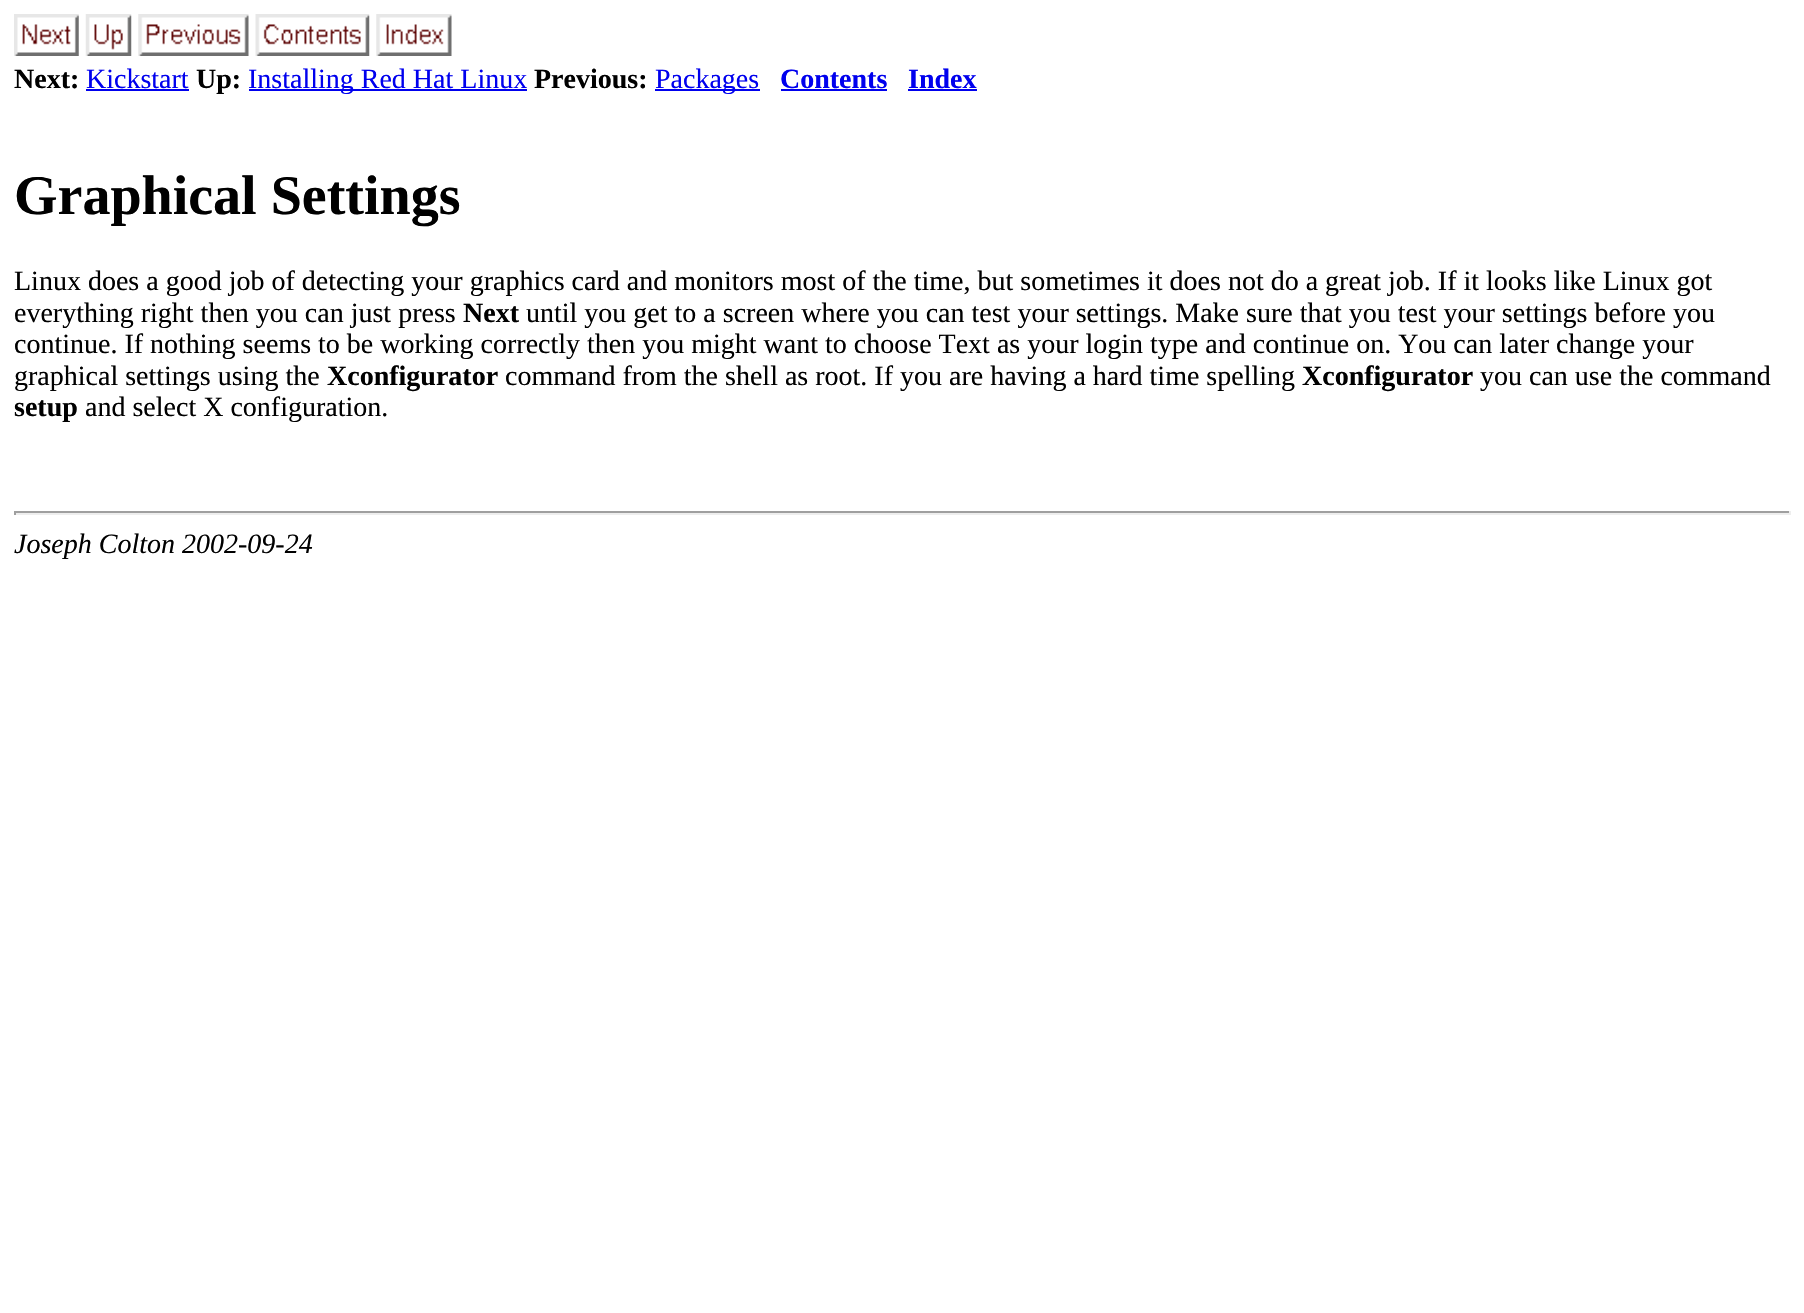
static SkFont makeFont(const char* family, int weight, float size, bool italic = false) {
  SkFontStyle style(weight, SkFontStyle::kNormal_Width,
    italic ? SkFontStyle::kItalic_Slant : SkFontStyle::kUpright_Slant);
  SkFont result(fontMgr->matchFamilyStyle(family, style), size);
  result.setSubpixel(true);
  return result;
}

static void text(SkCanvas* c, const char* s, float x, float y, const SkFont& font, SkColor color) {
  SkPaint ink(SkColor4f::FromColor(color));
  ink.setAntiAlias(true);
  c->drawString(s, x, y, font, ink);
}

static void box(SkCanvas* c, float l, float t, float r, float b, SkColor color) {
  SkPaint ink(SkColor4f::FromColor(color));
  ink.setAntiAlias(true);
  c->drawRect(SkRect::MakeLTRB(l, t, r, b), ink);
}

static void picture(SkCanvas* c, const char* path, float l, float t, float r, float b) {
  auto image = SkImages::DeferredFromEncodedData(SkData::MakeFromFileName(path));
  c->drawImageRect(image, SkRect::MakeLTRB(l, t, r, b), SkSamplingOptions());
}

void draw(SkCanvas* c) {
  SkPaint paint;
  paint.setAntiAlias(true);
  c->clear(0xffffffff);
  picture(c, "img_01.png", 14, 14, 79, 56);
  picture(c, "img_02.png", 85, 14, 132, 56);
  picture(c, "img_03.png", 138, 14, 249, 56);
  picture(c, "img_04.png", 255, 14, 370, 56);
  picture(c, "img_05.png", 376, 14, 452, 56);
  SkFont face1 = makeFont("Liberation Serif", 700, 28);
  text(c, "Next:", 14, 88, face1, 0xff000000);
  SkFont face2 = makeFont("Liberation Serif", 400, 28);
  text(c, "Kickstart", 86, 88, face2, 0xff0000ee);
  box(c, 86, 89, 189, 91, 0xff0000ee);
  text(c, "Up:", 196, 88, face1, 0xff000000);
  box(c, 249, 89, 527, 91, 0xff0000ee);
  text(c, "Installing Red Hat Linux", 248, 88, face2, 0xff0000ee);
  text(c, "Previous:", 534, 88, face1, 0xff000000);
  box(c, 655, 89, 760, 91, 0xff0000ee);
  text(c, "Packages", 655, 88, face2, 0xff0000ee);
  text(c, "Contents", 780, 88, face1, 0xff0000ee);
  box(c, 781, 89, 887, 91, 0xff0000ee);
  text(c, "Index", 908, 88, face1, 0xff0000ee);
  box(c, 908, 89, 977, 91, 0xff0000ee);
  SkFont face3 = makeFont("Liberation Serif", 700, 56);
  text(c, "Graphical Settings", 14, 214, face3, 0xff000000);
  text(c, "Linux does a good job of detecting your graphics card and monitors most of the time, but sometimes it does not do a great job. If it looks like Linux got", 14, 290, face2, 0xff000000);
  text(c, "everything right then you can just press", 14, 322, face2, 0xff000000);
  text(c, "Next", 463, 322, face1, 0xff000000);
  text(c, "until you get to a screen where you can test your settings. Make sure that you test your settings before you", 526, 322, face2, 0xff000000);
  text(c, "continue. If nothing seems to be working correctly then you might want to choose Text as your login type and continue on. You can later change your", 14, 353, face2, 0xff000000);
  text(c, "graphical settings using the", 14, 385, face2, 0xff000000);
  text(c, "Xconfigurator", 327, 385, face1, 0xff000000);
  text(c, "command from the shell as root. If you are having a hard time spelling", 505, 385, face2, 0xff000000);
  text(c, "Xconfigurator", 1302, 385, face1, 0xff000000);
  text(c, "you can use the command", 1480, 385, face2, 0xff000000);
  text(c, "setup", 14, 416, face1, 0xff000000);
  text(c, "and select X configuration.", 85, 416, face2, 0xff000000);
  box(c, 14, 511, 1790, 513, 0xff9f9f9f);
  box(c, 1789, 511, 1791, 515, 0xffeeeeee);
  box(c, 14, 513, 1790, 515, 0xffeeeeee);
  box(c, 14, 511, 16, 515, 0xff9f9f9f);
  SkFont face4 = makeFont("Liberation Serif", 400, 28, true);
  text(c, "Joseph Colton 2002-09-24", 14, 553, face4, 0xff000000);
}
